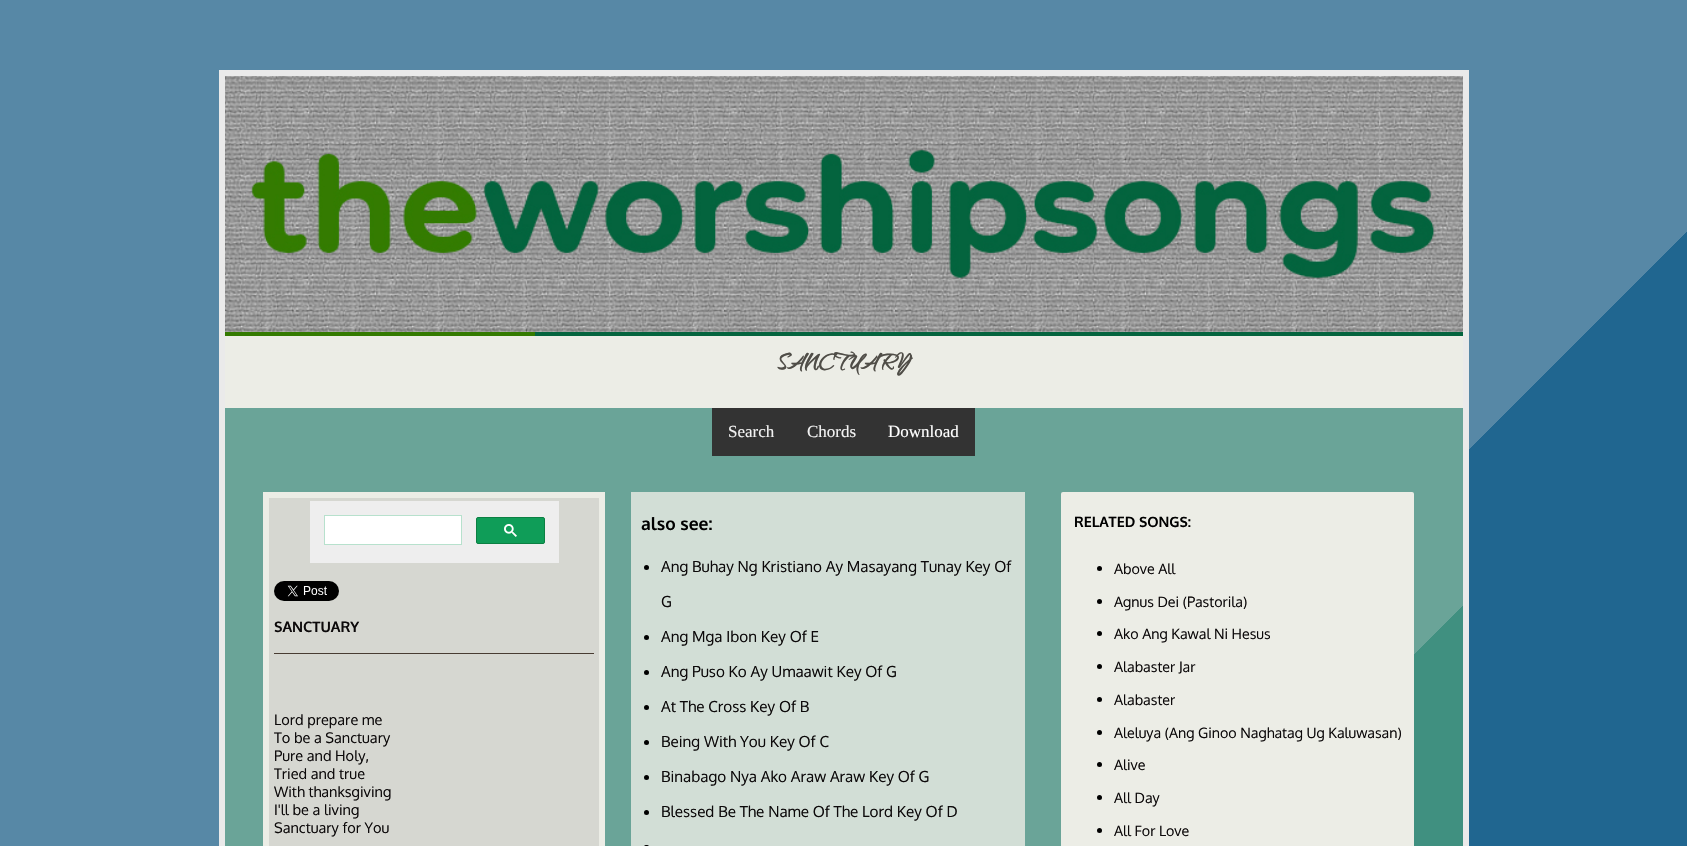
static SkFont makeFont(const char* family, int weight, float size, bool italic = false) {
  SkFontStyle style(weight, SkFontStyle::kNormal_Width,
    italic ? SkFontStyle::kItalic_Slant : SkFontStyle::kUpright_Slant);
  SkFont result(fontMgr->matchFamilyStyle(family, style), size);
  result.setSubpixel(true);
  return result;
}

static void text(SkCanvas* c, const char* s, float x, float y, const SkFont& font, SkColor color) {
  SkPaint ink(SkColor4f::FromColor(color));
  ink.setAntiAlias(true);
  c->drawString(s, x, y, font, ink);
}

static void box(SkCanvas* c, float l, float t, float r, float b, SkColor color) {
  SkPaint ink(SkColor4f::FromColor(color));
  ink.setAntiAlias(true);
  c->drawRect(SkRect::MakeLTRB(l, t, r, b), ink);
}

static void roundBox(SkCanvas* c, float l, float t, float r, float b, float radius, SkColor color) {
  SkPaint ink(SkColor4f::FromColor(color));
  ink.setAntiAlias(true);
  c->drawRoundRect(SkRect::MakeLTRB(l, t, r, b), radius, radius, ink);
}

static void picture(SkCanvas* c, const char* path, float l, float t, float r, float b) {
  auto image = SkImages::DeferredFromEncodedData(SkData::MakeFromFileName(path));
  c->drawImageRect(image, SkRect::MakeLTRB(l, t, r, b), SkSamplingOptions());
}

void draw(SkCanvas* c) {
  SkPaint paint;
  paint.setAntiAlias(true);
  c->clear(0xffffffff);
  {
    const SkColor colors[] = {0xff5788a6, 0xff206690};
    const float stops[] = {0.25f, 0.25f};
    const SkPoint ends[] = {{-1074, 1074}, {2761, 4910}};
    paint.setShader(SkGradientShader::MakeLinear(ends, colors, stops, 2, SkTileMode::kClamp));
    paint.setAlpha(255);
  }
  c->drawRect(SkRect::MakeLTRB(0, 0, 1687, 846), paint);
  {
    const SkColor colors[] = {0xff6aa498, 0xff409080};
    const float stops[] = {0.25f, 0.25f};
    const SkPoint ends[] = {{-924, 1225}, {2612, 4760}};
    paint.setShader(SkGradientShader::MakeLinear(ends, colors, stops, 2, SkTileMode::kClamp));
    paint.setAlpha(255);
  }
  c->drawRect(SkRect::MakeLTRB(225, 408, 1463, 846), paint);
  paint.setStyle(SkPaint::kStroke_Style);
  paint.setStrokeWidth(6);
  paint.setShader(nullptr);
  paint.setColor(0xffeaeaea);
  c->drawRect(SkRect::MakeLTRB(222, 73, 1466, 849), paint);
  box(c, 535, 332, 1463, 336, 0xff04643e);
  box(c, 225, 332, 535, 336, 0xff337a00);
  picture(c, "img_01.png", 225, 76, 1463, 332);
  box(c, 225, 336, 1463, 408, 0xffecede6);
  SkFont face1 = makeFont("Qwigley", 700, 30);
  text(c, "SANCTUARY", 777, 369, face1, 0xff4f4d47);
  box(c, 712, 408, 975, 456, 0xff333333);
  SkFont face2 = makeFont("Liberation Serif", 400, 17);
  text(c, "Search", 728, 437, face2, 0xfff2f2f2);
  text(c, "Chords", 807, 437, face2, 0xfff2f2f2);
  text(c, "Download", 888, 437, face2, 0xffffffff);
  box(c, 269, 498, 599, 846, 0xffd6d7d1);
  paint.setColor(0xffecede6);
  c->drawPath(SkPathBuilder().moveTo(266, 495).lineTo(602, 495).lineTo(602, 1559).lineTo(266, 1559).close().detach(), paint);
  box(c, 310, 501, 559, 563, 0xffeeeeee);
  paint.setStyle(SkPaint::kFill_Style);
  paint.setColor(0xffffffff);
  c->drawRect(SkRect::MakeLTRB(324.5f, 515.5f, 461.5f, 544.5f), paint);
  paint.setStyle(SkPaint::kStroke_Style);
  paint.setStrokeWidth(1);
  paint.setColor(0xffb7e1cd);
  c->drawRect(SkRect::MakeLTRB(324.5f, 515.5f, 461.5f, 544.5f), paint);
  paint.setStyle(SkPaint::kFill_Style);
  paint.setColor(0xff0f9d58);
  c->drawRoundRect(SkRect::MakeLTRB(476.5f, 517.5f, 544.5f, 543.5f), 1.5f, 1.5f, paint);
  paint.setStyle(SkPaint::kStroke_Style);
  paint.setColor(0xff0b8043);
  c->drawRoundRect(SkRect::MakeLTRB(476.5f, 517.5f, 544.5f, 543.5f), 1.5f, 1.5f, paint);
  picture(c, "img_02.png", 504, 524, 517, 537);
  picture(c, "img_03.png", 274, 581, 339, 601);
  SkFont face3 = makeFont("Oxygen", 700, 14.5f);
  text(c, "SANCTUARY", 274, 632, face3, 0xff0c090a);
  box(c, 274, 653, 594, 654, 0xff483c32);
  SkFont face4 = makeFont("Oxygen", 400, 14.5f);
  text(c, "Lord prepare me", 274, 725, face4, 0xff0c090a);
  text(c, "To be a Sanctuary", 274, 743, face4, 0xff0c090a);
  text(c, "Pure and Holy,", 274, 761, face4, 0xff0c090a);
  text(c, "Tried and true", 274, 779, face4, 0xff0c090a);
  text(c, "With thanksgiving", 274, 797, face4, 0xff0c090a);
  text(c, "I'll be a living", 274, 815, face4, 0xff0c090a);
  text(c, "Sanctuary for You", 274, 833, face4, 0xff0c090a);
  box(c, 631, 492, 1025, 846, 0xffd2ded6);
  SkFont face5 = makeFont("Oxygen", 700, 17.5f);
  text(c, "also see:", 641, 530, face5, 0xff000000);
  paint.setStyle(SkPaint::kFill_Style);
  paint.setColor(0xff000000);
  c->drawCircle(646.5f, 567.5f, 2.5f, paint);
  SkFont face6 = makeFont("Oxygen", 400, 15.2f);
  text(c, "Ang Buhay Ng Kristiano Ay Masayang Tunay Key Of", 661, 572, face6, 0xff0c090a);
  text(c, "G", 661, 607, face6, 0xff0c090a);
  c->drawCircle(646.5f, 637.5f, 2.5f, paint);
  text(c, "Ang Mga Ibon Key Of E", 661, 642, face6, 0xff0c090a);
  c->drawCircle(646.5f, 672.5f, 2.5f, paint);
  text(c, "Ang Puso Ko Ay Umaawit Key Of G", 661, 677, face6, 0xff0c090a);
  c->drawCircle(646.5f, 707.5f, 2.5f, paint);
  text(c, "At The Cross Key Of B", 661, 712, face6, 0xff0c090a);
  c->drawCircle(646.5f, 742.5f, 2.5f, paint);
  text(c, "Being With You Key Of C", 661, 747, face6, 0xff0c090a);
  c->drawCircle(646.5f, 777.5f, 2.5f, paint);
  text(c, "Binabago Nya Ako Araw Araw Key Of G", 661, 782, face6, 0xff0c090a);
  c->drawCircle(646.5f, 812.5f, 2.5f, paint);
  text(c, "Blessed Be The Name Of The Lord Key Of D", 661, 817, face6, 0xff0c090a);
  roundBox(c, 644, 845, 649, 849, 2.5f, 0xff000000);
  roundBox(c, 1061, 492, 1414, 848, 2, 0xffecede6);
  SkFont face7 = makeFont("Oxygen", 700, 14.25f);
  text(c, "RELATED SONGS:", 1074, 527, face7, 0xff000000);
  c->drawCircle(1099.5f, 568.5f, 2.5f, paint);
  SkFont face8 = makeFont("Oxygen", 400, 14.25f);
  text(c, "Above All", 1114, 574, face8, 0xff0c090a);
  c->drawCircle(1099.5f, 601.5f, 2.5f, paint);
  text(c, "Agnus Dei (Pastorila)", 1114, 607, face8, 0xff0c090a);
  c->drawCircle(1099.5f, 633.5f, 2.5f, paint);
  text(c, "Ako Ang Kawal Ni Hesus", 1114, 639, face8, 0xff0c090a);
  c->drawCircle(1099.5f, 666.5f, 2.5f, paint);
  text(c, "Alabaster Jar", 1114, 672, face8, 0xff0c090a);
  c->drawCircle(1099.5f, 699.5f, 2.5f, paint);
  text(c, "Alabaster", 1114, 705, face8, 0xff0c090a);
  c->drawCircle(1099.5f, 732.5f, 2.5f, paint);
  text(c, "Aleluya (Ang Ginoo Naghatag Ug Kaluwasan)", 1114, 738, face8, 0xff0c090a);
  c->drawCircle(1099.5f, 764.5f, 2.5f, paint);
  text(c, "Alive", 1114, 770, face8, 0xff0c090a);
  c->drawCircle(1099.5f, 797.5f, 2.5f, paint);
  text(c, "All Day", 1114, 803, face8, 0xff0c090a);
  c->drawCircle(1099.5f, 830.5f, 2.5f, paint);
  text(c, "All For Love", 1114, 836, face8, 0xff0c090a);
}
